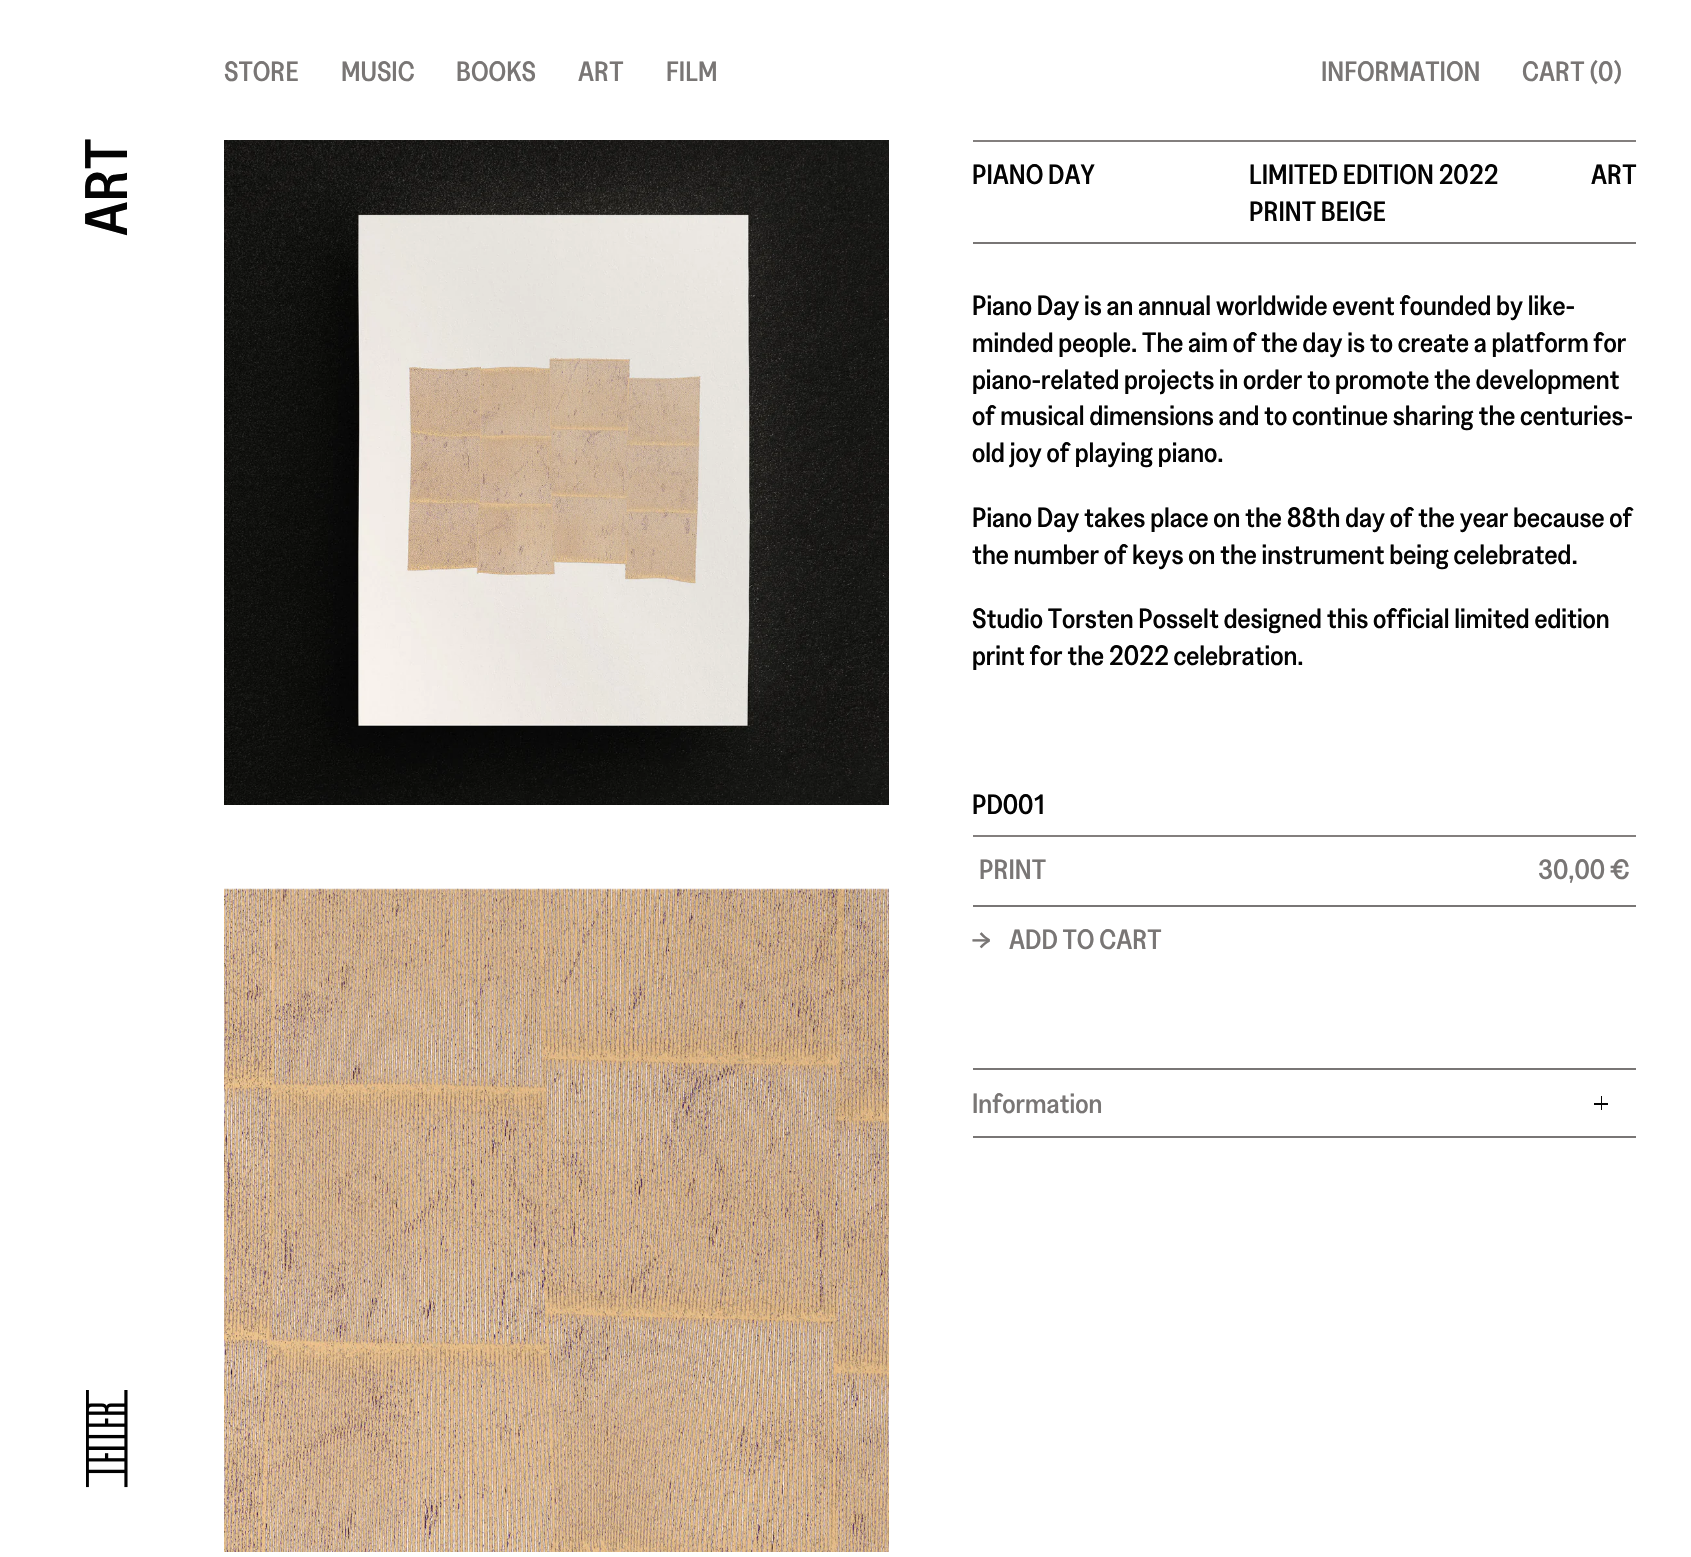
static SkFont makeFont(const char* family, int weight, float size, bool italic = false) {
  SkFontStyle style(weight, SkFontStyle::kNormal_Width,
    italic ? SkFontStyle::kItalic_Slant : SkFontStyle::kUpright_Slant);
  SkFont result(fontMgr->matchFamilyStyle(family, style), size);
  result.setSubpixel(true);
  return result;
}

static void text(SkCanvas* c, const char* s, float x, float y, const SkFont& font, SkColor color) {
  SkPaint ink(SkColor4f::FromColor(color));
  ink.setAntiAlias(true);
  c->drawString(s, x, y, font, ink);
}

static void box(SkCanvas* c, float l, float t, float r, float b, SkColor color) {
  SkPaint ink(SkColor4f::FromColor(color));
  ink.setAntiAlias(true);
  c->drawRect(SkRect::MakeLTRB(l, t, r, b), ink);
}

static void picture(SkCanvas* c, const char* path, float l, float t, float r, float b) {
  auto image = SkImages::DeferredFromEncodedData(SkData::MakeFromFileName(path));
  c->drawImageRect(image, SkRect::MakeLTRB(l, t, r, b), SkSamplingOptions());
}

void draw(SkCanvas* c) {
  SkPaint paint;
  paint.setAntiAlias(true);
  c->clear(0xffffffff);
  SkFont face1 = makeFont("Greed", 500, 28);
  text(c, "INFORMATION", 1321, 81, face1, 0xff797675);
  text(c, "CART (0)", 1522, 81, face1, 0xff797675);
  SkFont face2 = makeFont("Greed", 500, 60);
  c->save();
  c->rotate(-90, 127, 236);
  text(c, "ART", 127, 236, face2, 0xff030303);
  c->restore();
  picture(c, "img_01.png", 86, 1390, 128, 1488);
  text(c, "STORE", 224, 81, face1, 0xff797675);
  text(c, "MUSIC", 341, 81, face1, 0xff797675);
  text(c, "BOOKS", 456, 81, face1, 0xff797675);
  text(c, "ART", 578, 81, face1, 0xff797675);
  text(c, "FILM", 666, 81, face1, 0xff797675);
  picture(c, "img_02.png", 224, 140, 889, 805);
  picture(c, "img_03.png", 224, 888, 889, 1552);
  box(c, 973, 242, 1636, 244, 0xff797675);
  box(c, 973, 140, 1636, 142, 0xff837f7e);
  text(c, "PIANO DAY", 972, 184, face1, 0xff030303);
  text(c, "LIMITED EDITION 2022", 1249, 184, face1, 0xff030303);
  text(c, "PRINT BEIGE", 1249, 221, face1, 0xff030303);
  text(c, "ART", 1591, 184, face1, 0xff030303);
  text(c, "Piano Day is an annual worldwide event founded by like-", 972, 315, face1, 0xff030303);
  text(c, "minded people. The aim of the day is to create a platform for", 972, 352, face1, 0xff030303);
  text(c, "piano-related projects in order to promote the development", 972, 389, face1, 0xff030303);
  text(c, "of musical dimensions and to continue sharing the centuries-", 972, 425, face1, 0xff030303);
  text(c, "old joy of playing piano.", 972, 462, face1, 0xff030303);
  text(c, "Piano Day takes place on the 88th day of the year because of", 972, 527, face1, 0xff030303);
  text(c, "the number of keys on the instrument being celebrated.", 972, 564, face1, 0xff030303);
  text(c, "Studio Torsten Posselt designed this official limited edition", 972, 628, face1, 0xff030303);
  text(c, "print for the 2022 celebration.", 972, 665, face1, 0xff030303);
  text(c, "PD001", 972, 814, face1, 0xff030303);
  box(c, 973, 905, 1636, 907, 0xff797675);
  box(c, 973, 835, 1636, 837, 0xff837f7e);
  text(c, "PRINT", 979, 879, face1, 0xff797675);
  text(c, "30,00 €", 1538, 879, face1, 0xff797675);
  text(c, "→", 972, 949, face1, 0xff797675);
  text(c, "ADD TO CART", 1009, 949, face1, 0xff797675);
  box(c, 973, 1068, 1636, 1070, 0xff797675);
  box(c, 973, 1136, 1636, 1138, 0xff797675);
  text(c, "Information", 972, 1113, face1, 0xff797675);
  box(c, 1601, 1096, 1602, 1110, 0xff030303);
  box(c, 1594, 1103, 1608, 1105, 0xff030303);
}
